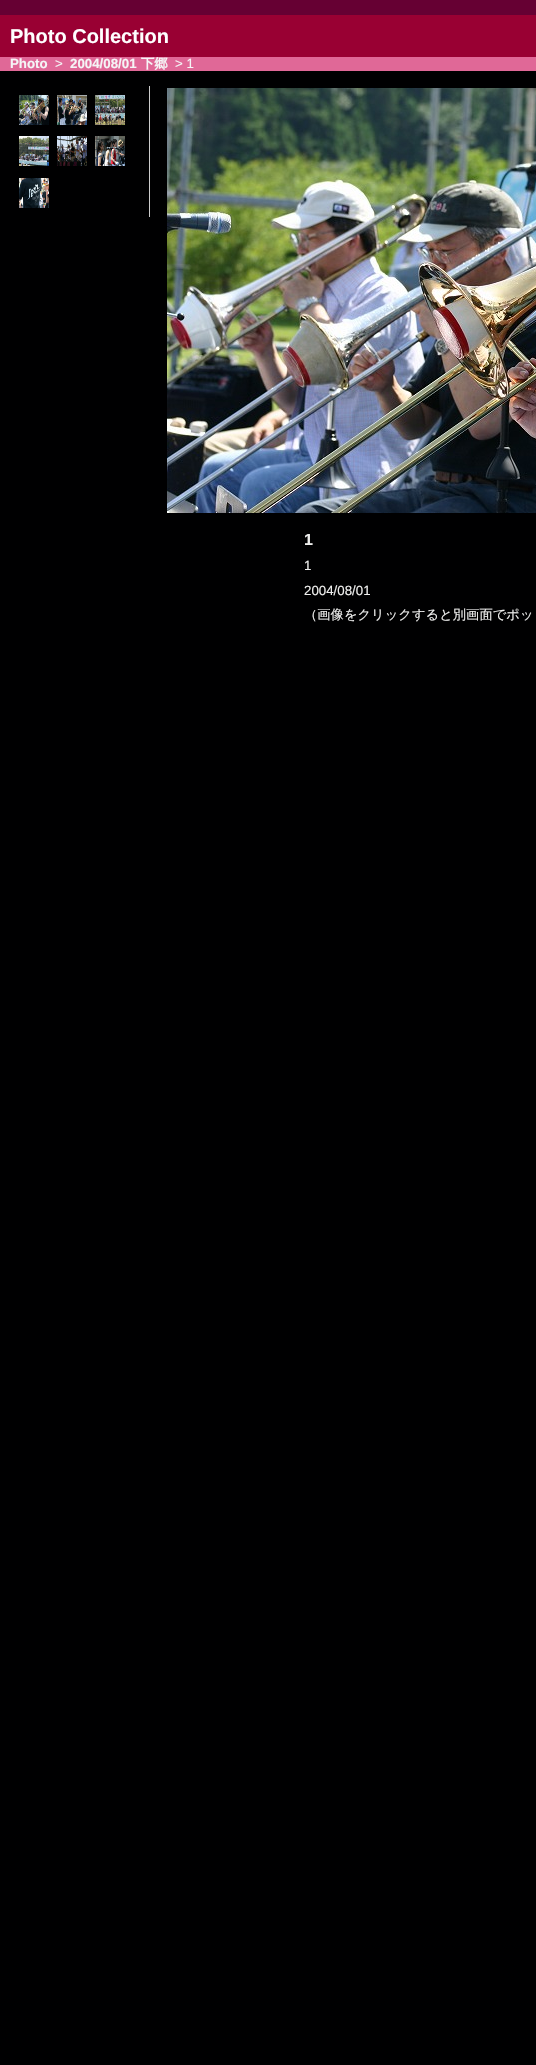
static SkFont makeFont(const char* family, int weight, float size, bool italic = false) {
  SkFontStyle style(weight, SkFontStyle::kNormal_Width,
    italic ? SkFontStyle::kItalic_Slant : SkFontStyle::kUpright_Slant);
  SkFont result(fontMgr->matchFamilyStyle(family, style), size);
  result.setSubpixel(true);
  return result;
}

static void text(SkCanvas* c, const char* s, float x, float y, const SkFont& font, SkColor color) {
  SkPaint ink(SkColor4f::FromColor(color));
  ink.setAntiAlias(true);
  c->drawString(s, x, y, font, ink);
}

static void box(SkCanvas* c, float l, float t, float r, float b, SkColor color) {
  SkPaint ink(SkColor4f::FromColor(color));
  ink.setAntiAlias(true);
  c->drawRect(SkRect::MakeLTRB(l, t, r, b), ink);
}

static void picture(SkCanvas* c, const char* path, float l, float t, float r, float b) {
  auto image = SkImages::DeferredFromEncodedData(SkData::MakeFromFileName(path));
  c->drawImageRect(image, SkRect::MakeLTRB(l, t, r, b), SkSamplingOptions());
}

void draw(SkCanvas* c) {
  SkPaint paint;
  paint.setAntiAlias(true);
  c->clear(0xff000001);
  box(c, 0, 0, 536, 15, 0xff660033);
  box(c, 0, 15, 536, 57, 0xff990033);
  SkFont face1 = makeFont("Liberation Sans", 700, 20);
  text(c, "Photo Collection", 10, 43, face1, 0xffffffff);
  box(c, 0, 57, 536, 71, 0xffe06897);
  SkFont face2 = makeFont("Liberation Sans", 700, 13.3f);
  text(c, "Photo", 10, 68, face2, 0xfff5f5f6);
  SkFont face3 = makeFont("Liberation Sans", 400, 13.3f);
  text(c, ">", 55, 68, face3, 0xfff5f5f6);
  text(c, "2004/08/01", 70, 68, face2, 0xfff5f5f6);
  SkFont face4 = makeFont("WenQuanYi Zen Hei", 700, 13.3f);
  text(c, "下郷", 141, 68, face4, 0xfff5f5f6);
  text(c, "> 1", 175, 68, face3, 0xfff5f5f6);
  box(c, 149, 86, 150, 217, 0xffcccccc);
  picture(c, "img_01.png", 19, 95, 49, 125);
  picture(c, "img_02.png", 57, 95, 87, 125);
  picture(c, "img_03.png", 95, 95, 125, 125);
  picture(c, "img_04.png", 19, 136, 49, 166);
  picture(c, "img_05.png", 57, 136, 87, 166);
  picture(c, "img_06.png", 95, 136, 125, 166);
  picture(c, "img_07.png", 19, 178, 49, 208);
  picture(c, "img_08.png", 167, 88, 536, 513);
  SkFont face5 = makeFont("Liberation Sans", 700, 16);
  text(c, "1", 304, 545, face5, 0xffeeeeed);
  text(c, "1", 304, 570, face3, 0xffeeeeed);
  text(c, "2004/08/01", 304, 595, face3, 0xffeeeeed);
  SkFont face6 = makeFont("WenQuanYi Zen Hei", 500, 13.3f);
  text(c, "（画像をクリックすると別画面でポッ", 304, 619, face6, 0xffeeeeed);
}
